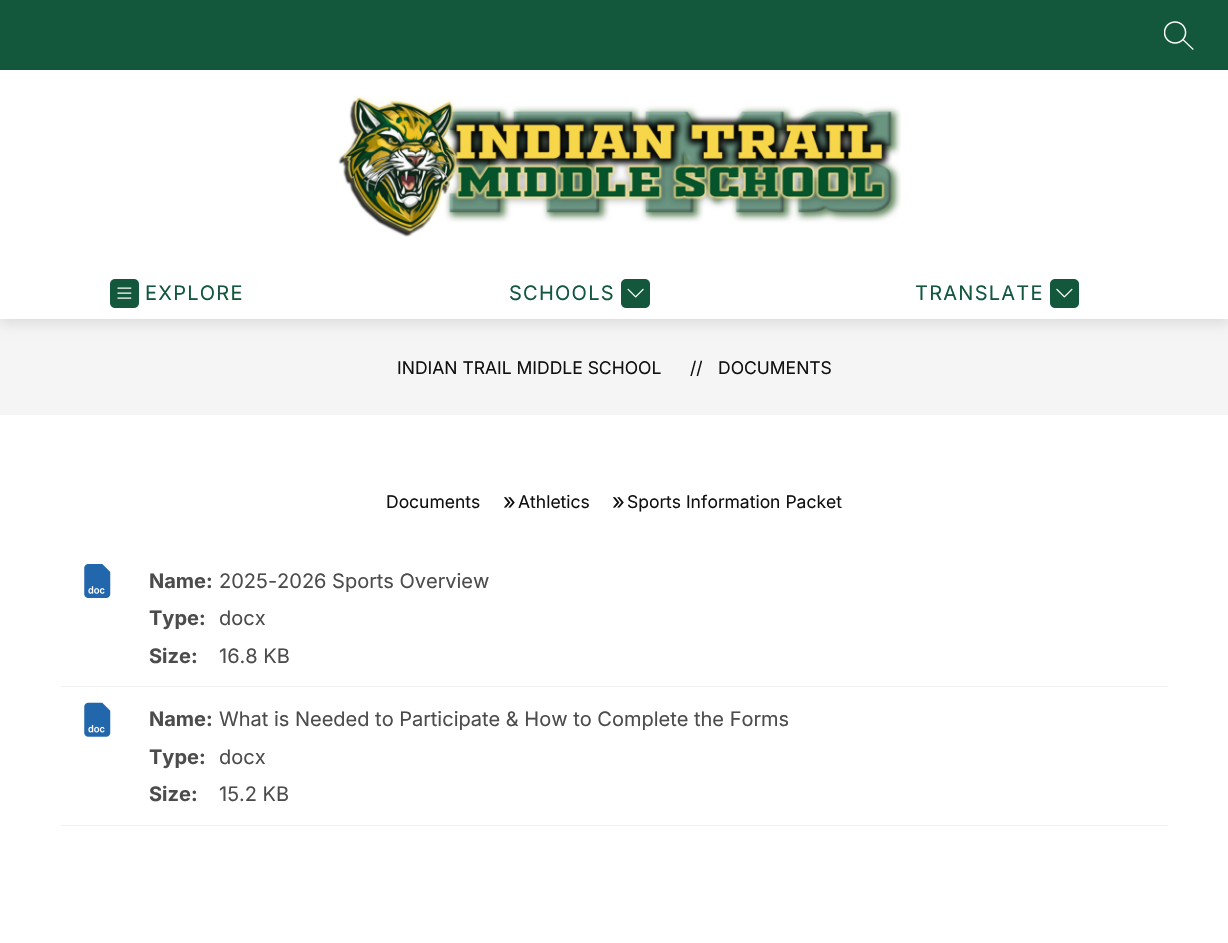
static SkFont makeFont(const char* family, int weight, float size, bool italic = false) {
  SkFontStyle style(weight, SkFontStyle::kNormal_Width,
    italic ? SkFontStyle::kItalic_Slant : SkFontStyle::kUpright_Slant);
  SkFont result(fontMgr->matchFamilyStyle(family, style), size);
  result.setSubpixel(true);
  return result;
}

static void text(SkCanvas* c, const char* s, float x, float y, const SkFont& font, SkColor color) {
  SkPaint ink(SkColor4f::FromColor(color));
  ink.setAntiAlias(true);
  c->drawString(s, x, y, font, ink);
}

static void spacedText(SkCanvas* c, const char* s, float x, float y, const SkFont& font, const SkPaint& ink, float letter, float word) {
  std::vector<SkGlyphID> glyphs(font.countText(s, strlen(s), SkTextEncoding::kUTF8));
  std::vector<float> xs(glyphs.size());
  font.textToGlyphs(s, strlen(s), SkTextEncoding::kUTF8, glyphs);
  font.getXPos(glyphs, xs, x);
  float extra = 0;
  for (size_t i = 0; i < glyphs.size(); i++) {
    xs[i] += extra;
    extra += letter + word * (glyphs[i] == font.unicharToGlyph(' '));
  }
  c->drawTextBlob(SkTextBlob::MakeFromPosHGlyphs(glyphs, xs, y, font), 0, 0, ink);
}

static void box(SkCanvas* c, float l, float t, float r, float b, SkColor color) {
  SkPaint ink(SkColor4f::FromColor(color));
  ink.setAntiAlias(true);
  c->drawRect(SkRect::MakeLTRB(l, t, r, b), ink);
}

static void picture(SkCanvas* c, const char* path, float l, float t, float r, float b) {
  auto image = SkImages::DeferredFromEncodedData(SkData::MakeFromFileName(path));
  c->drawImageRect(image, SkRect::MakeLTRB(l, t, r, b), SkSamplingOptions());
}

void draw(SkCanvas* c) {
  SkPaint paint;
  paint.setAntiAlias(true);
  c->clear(0xffffffff);
  box(c, 0, 319, 1228, 415, 0xfff5f5f5);
  paint.setColor(0x1a000000);
  paint.setMaskFilter(SkMaskFilter::MakeBlur(kNormal_SkBlurStyle, 6));
  c->drawRect(SkRect::MakeLTRB(0, 5, 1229, 324), paint);
  paint.setMaskFilter(nullptr);
  box(c, 0, 70, 1228, 319, 0xffffffff);
  box(c, 0, 0, 1228, 70, 0xff13583d);
  picture(c, "img_01.png", 1164, 21, 1194, 50);
  picture(c, "img_02.png", 338, 95, 901, 237);
  picture(c, "img_03.png", 110, 279, 139, 308);
  SkFont face1 = makeFont("Inter", 400, 20);
  paint.setColor(0xff13583d);
  spacedText(c, "EXPLORE", 145, 300, face1, paint, 1.25f, 0);
  spacedText(c, "SCHOOLS", 509, 300, face1, paint, 1.25f, 0);
  picture(c, "img_04.png", 621, 279, 650, 308);
  spacedText(c, "TRANSLATE", 915, 300, face1, paint, 1.25f, 0);
  picture(c, "img_05.png", 1050, 279, 1079, 308);
  SkFont face2 = makeFont("Inter", 400, 17.5f);
  text(c, "INDIAN TRAIL MIDDLE SCHOOL", 397, 374, face2, 0xff111111);
  text(c, "//", 690, 374, face2, 0xff111111);
  text(c, "DOCUMENTS", 718, 374, face2, 0xff111111);
  text(c, "Documents", 386, 508, face2, 0xff111111);
  SkFont face3 = makeFont("Inter", 400, 22);
  text(c, "»", 503, 509, face3, 0xff111111);
  text(c, "Athletics", 518, 508, face2, 0xff111111);
  text(c, "»", 612, 509, face3, 0xff111111);
  text(c, "Sports Information Packet", 627, 508, face2, 0xff111111);
  box(c, 61, 686, 1168, 687, 0xfff0f0f0);
  picture(c, "img_06.png", 84, 564, 111, 598);
  SkFont face4 = makeFont("Inter", 700, 20);
  text(c, "Name:", 149, 588, face4, 0xff4c4c4c);
  text(c, "2025-2026 Sports Overview", 219, 588, face1, 0xff4c4c4c);
  text(c, "Type:", 149, 625, face4, 0xff4c4c4c);
  text(c, "docx", 219, 625, face1, 0xff4c4c4c);
  text(c, "Size:", 149, 663, face4, 0xff4c4c4c);
  text(c, "16.8 KB", 219, 663, face1, 0xff4c4c4c);
  box(c, 61, 825, 1168, 826, 0xfff0f0f0);
  picture(c, "img_07.png", 84, 702, 111, 737);
  text(c, "Name:", 149, 726, face4, 0xff4c4c4c);
  text(c, "What is Needed to Participate & How to Complete the Forms", 219, 726, face1, 0xff4c4c4c);
  text(c, "Type:", 149, 764, face4, 0xff4c4c4c);
  text(c, "docx", 219, 764, face1, 0xff4c4c4c);
  text(c, "Size:", 149, 801, face4, 0xff4c4c4c);
  text(c, "15.2 KB", 219, 801, face1, 0xff4c4c4c);
}
